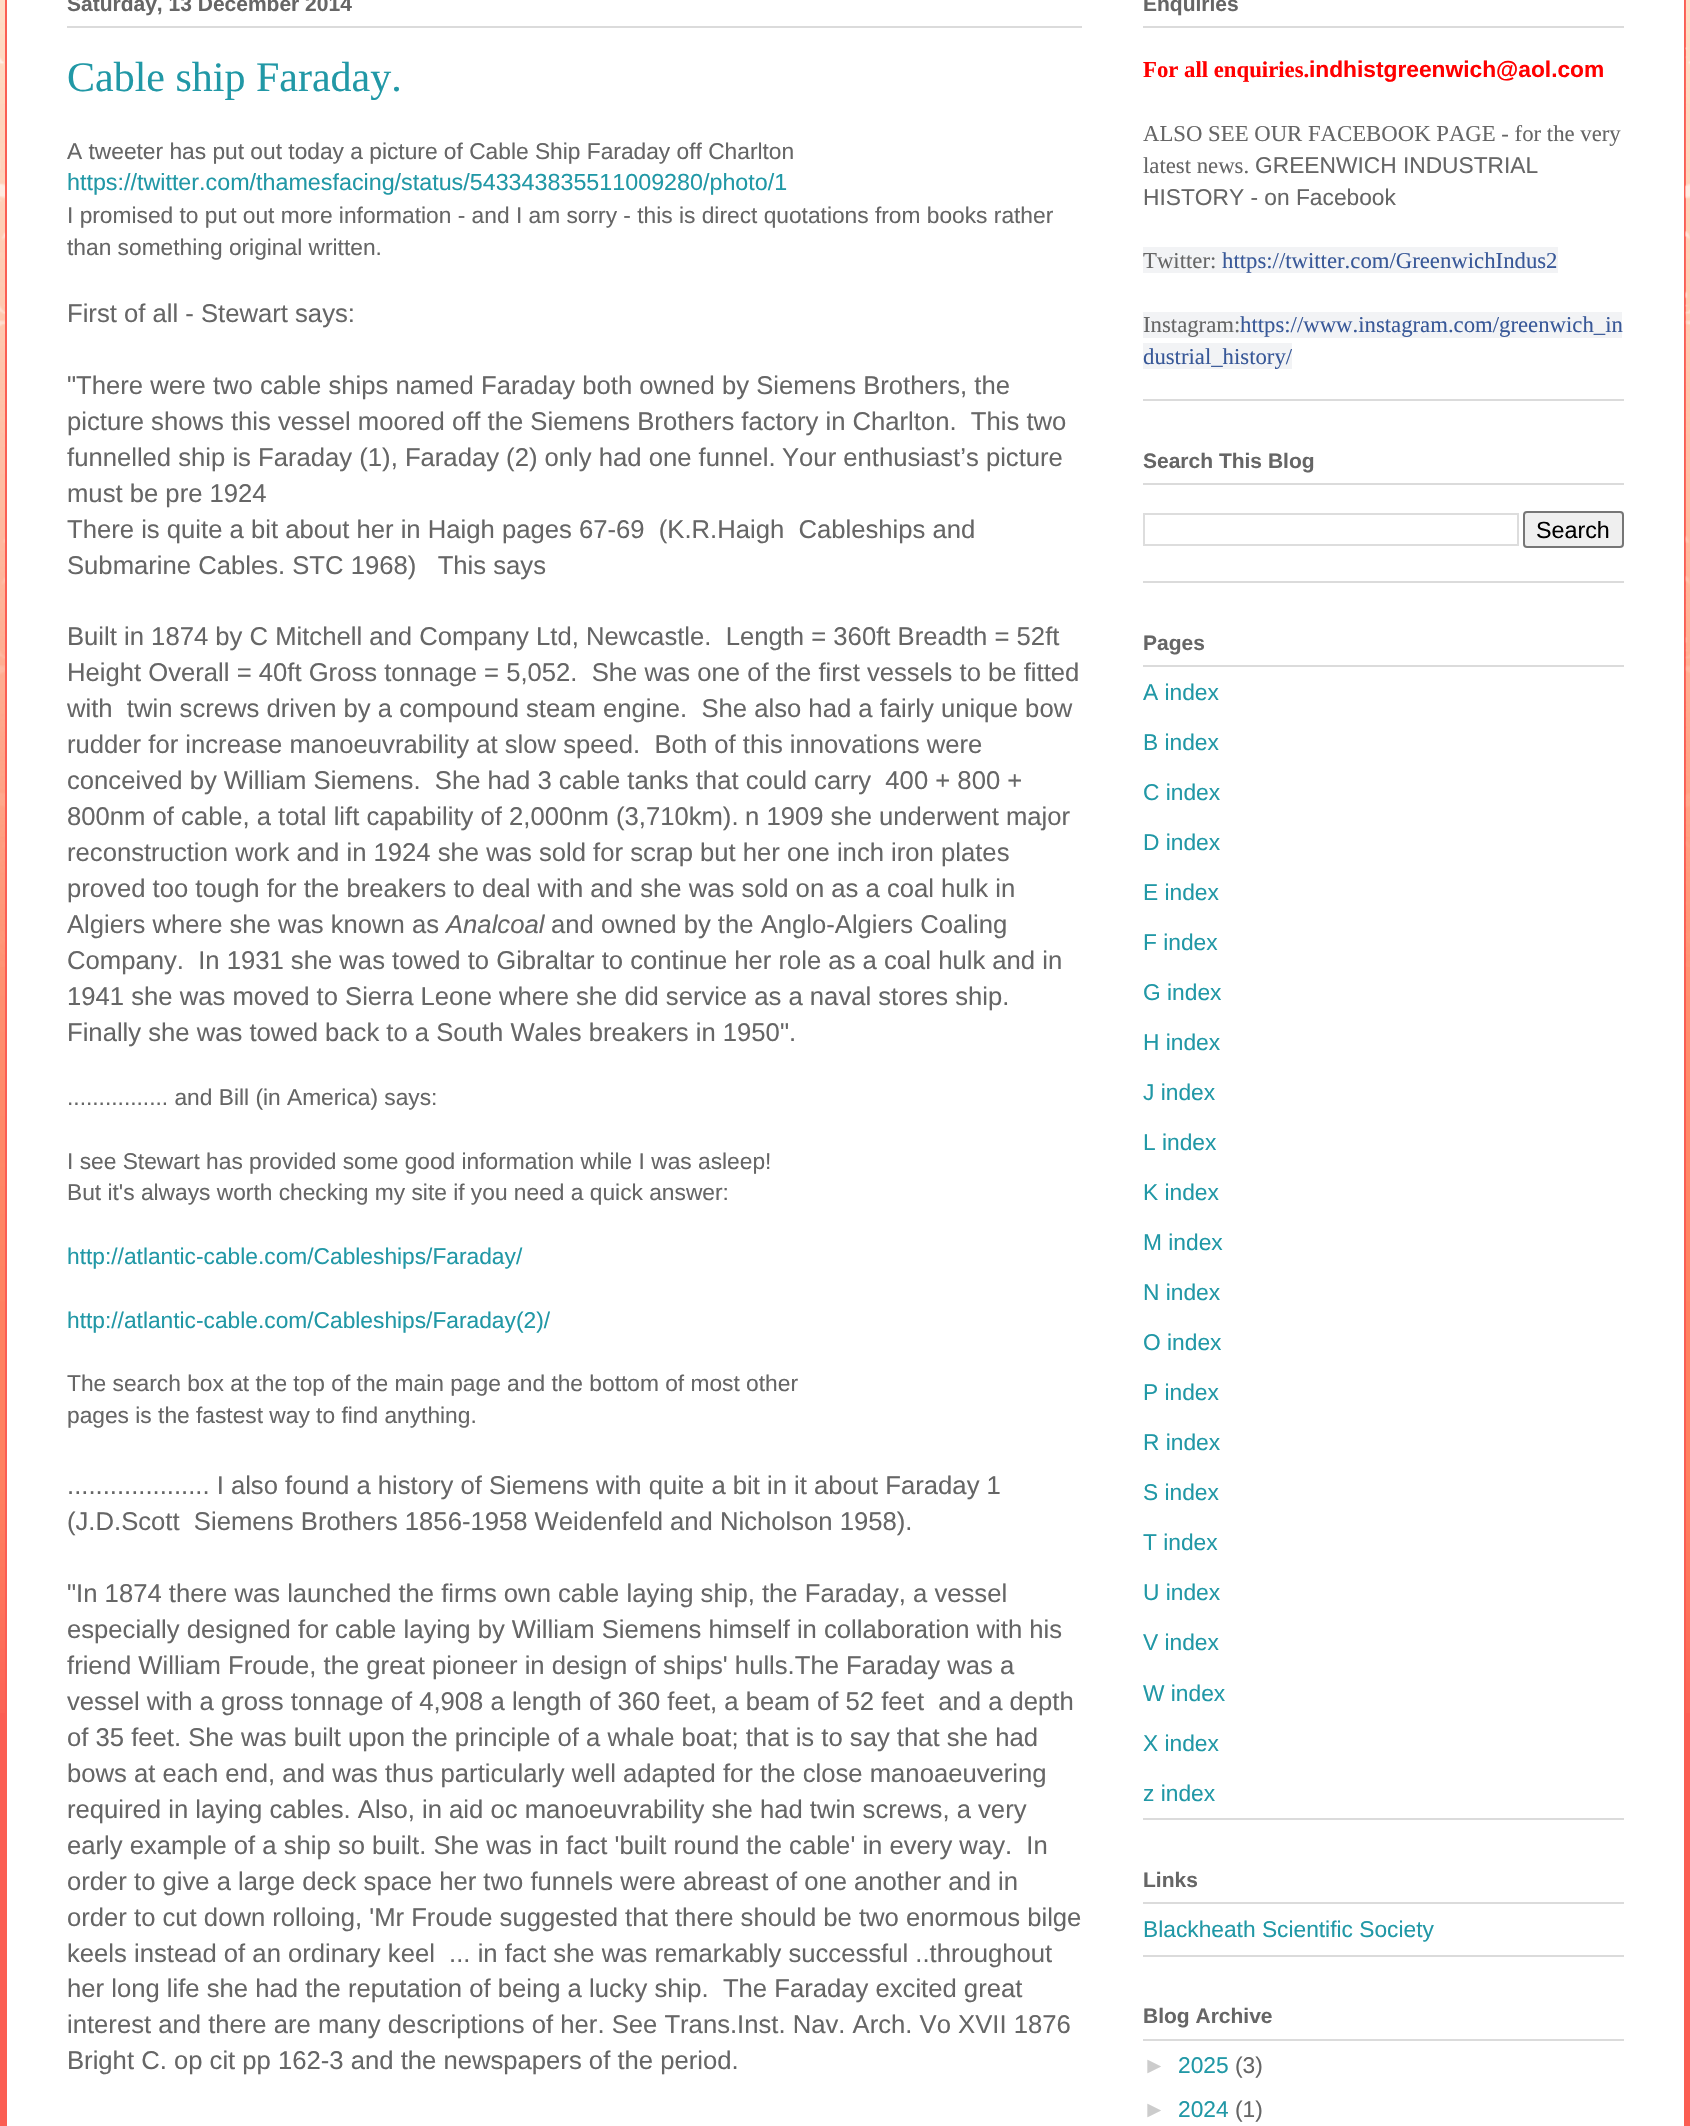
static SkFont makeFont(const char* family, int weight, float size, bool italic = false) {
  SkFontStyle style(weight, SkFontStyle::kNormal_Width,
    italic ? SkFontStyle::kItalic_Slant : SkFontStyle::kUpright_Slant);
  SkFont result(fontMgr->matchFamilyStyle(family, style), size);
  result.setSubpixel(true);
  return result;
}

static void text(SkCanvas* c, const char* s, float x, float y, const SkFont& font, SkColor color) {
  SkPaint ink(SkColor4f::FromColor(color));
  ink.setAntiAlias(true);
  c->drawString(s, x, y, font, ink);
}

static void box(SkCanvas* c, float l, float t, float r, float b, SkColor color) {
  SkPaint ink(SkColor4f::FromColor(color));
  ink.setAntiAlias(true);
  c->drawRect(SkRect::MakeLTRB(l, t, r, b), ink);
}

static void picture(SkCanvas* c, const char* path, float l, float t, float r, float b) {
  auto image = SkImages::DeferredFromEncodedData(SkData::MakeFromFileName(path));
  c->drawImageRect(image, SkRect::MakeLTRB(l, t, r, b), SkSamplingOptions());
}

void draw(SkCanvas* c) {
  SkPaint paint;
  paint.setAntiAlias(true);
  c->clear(0xfffb5e53);
  picture(c, "img_01.png", 0, 0, 1690, 1713);
  picture(c, "img_02.png", 0, 0, 5, 967);
  box(c, 7, 0, 1684, 2126, 0xffffffff);
  box(c, 1684, 0, 1686, 1713, 0xfffb5e53);
  box(c, 5, 0, 7, 1713, 0xfffb5e53);
  picture(c, "img_03.png", 1685, 0, 1690, 967);
  box(c, 67, 26, 1082, 28, 0xffdbdbdb);
  SkFont face1 = makeFont("Liberation Sans", 700, 21);
  text(c, "Saturday, 13 December 2014", 67, 11, face1, 0xff666666);
  SkFont face2 = makeFont("Liberation Serif", 400, 42);
  text(c, "Cable ship Faraday.", 67, 91, face2, 0xff2198a6);
  SkFont face3 = makeFont("Liberation Sans", 400, 22.75f);
  text(c, "A tweeter has put out today a picture of Cable Ship Faraday off Charlton", 67, 159, face3, 0xff666666);
  SkFont face4 = makeFont("Liberation Sans", 400, 23.3f);
  text(c, "https://twitter.com/thamesfacing/status/543343835511009280/photo/1", 67, 190, face4, 0xff2198a6);
  text(c, "I promised to put out more information - and I am sorry - this is direct quotations from books rather", 67, 223, face3, 0xff666666);
  text(c, "than something original written.", 67, 255, face3, 0xff666666);
  SkFont face5 = makeFont("Liberation Sans", 400, 25.65f);
  text(c, "First of all - Stewart says:", 67, 322, face5, 0xff666666);
  text(c, "\"There were two cable ships named Faraday both owned by Siemens Brothers, the", 67, 394, face5, 0xff666666);
  text(c, "picture shows this vessel moored off the Siemens Brothers factory in Charlton.  This two", 67, 430, face5, 0xff666666);
  text(c, "funnelled ship is Faraday (1), Faraday (2) only had one funnel.", 67, 466, face5, 0xff666666);
  text(c, "Your enthusiast’s picture", 782, 466, face5, 0xff666666);
  text(c, "must be pre 1924", 67, 502, face5, 0xff666666);
  text(c, "There is quite a bit about her in Haigh pages 67-69  (K.R.Haigh  Cableships and", 67, 538, face5, 0xff666666);
  text(c, "Submarine Cables. STC 1968)   This says", 67, 574, face5, 0xff666666);
  text(c, "Built in 1874 by C Mitchell and Company Ltd, Newcastle.  Length = 360ft Breadth = 52ft", 67, 645, face5, 0xff666666);
  text(c, "Height Overall = 40ft Gross tonnage = 5,052.  She was one of the first vessels to be fitted", 67, 681, face5, 0xff666666);
  text(c, "with  twin screws driven by a compound steam engine.  She also had a fairly unique bow", 67, 717, face5, 0xff666666);
  text(c, "rudder for increase manoeuvrability at slow speed.  Both of this innovations were", 67, 753, face5, 0xff666666);
  text(c, "conceived by William Siemens.  She had 3 cable tanks that could carry  400 + 800 +", 67, 789, face5, 0xff666666);
  text(c, "800nm of cable, a total lift capability of 2,000nm (3,710km).", 67, 825, face5, 0xff666666);
  text(c, "n 1909 she underwent major", 745, 825, face5, 0xff666666);
  text(c, "reconstruction work and in 1924 she was sold for scrap but her one inch iron plates", 67, 861, face5, 0xff666666);
  text(c, "proved too tough for the breakers to deal with and she was sold on as a coal hulk in", 67, 897, face5, 0xff666666);
  text(c, "Algiers where she was known as", 67, 933, face5, 0xff666666);
  SkFont face6 = makeFont("Liberation Sans", 400, 25.65f, true);
  text(c, "Analcoal", 446, 933, face6, 0xff666666);
  text(c, "and owned by the Anglo-Algiers Coaling", 551, 933, face5, 0xff666666);
  text(c, "Company.  In 1931 she was towed to Gibraltar to continue her role as a coal hulk and in", 67, 969, face5, 0xff666666);
  text(c, "1941 she was moved to Sierra Leone where she did service as a naval stores ship.", 67, 1005, face5, 0xff666666);
  text(c, "Finally she was towed back to a South Wales breakers in 1950\".", 67, 1041, face5, 0xff666666);
  text(c, "................ and Bill (in America) says:", 67, 1105, face3, 0xff666666);
  text(c, "I see Stewart has provided some good information while I was asleep!", 67, 1169, face3, 0xff666666);
  text(c, "But it's always worth checking my site if you need a quick answer:", 67, 1200, face3, 0xff666666);
  text(c, "http://atlantic-cable.com/Cableships/Faraday/", 67, 1264, face3, 0xff2198a6);
  text(c, "http://atlantic-cable.com/Cableships/Faraday(2)/", 67, 1328, face3, 0xff2198a6);
  text(c, "The search box at the top of the main page and the bottom of most other", 67, 1391, face3, 0xff666666);
  text(c, "pages is the fastest way to find anything.", 67, 1423, face3, 0xff666666);
  text(c, ".................... I also found a history of Siemens with quite a bit in it about Faraday 1", 67, 1494, face5, 0xff666666);
  text(c, "(J.D.Scott  Siemens Brothers 1856-1958 Weidenfeld and Nicholson 1958).", 67, 1530, face5, 0xff666666);
  text(c, "\"In 1874 there was launched the firms own cable laying ship, the Faraday, a vessel", 67, 1602, face5, 0xff666666);
  text(c, "especially designed for cable laying by William Siemens himself in collaboration with his", 67, 1638, face5, 0xff666666);
  text(c, "friend William Froude, the great pioneer in design of ships' hulls.The Faraday was a", 67, 1674, face5, 0xff666666);
  text(c, "vessel with a gross tonnage of 4,908 a length of 360 feet, a beam of 52 feet  and a depth", 67, 1710, face5, 0xff666666);
  text(c, "of 35 feet. She was built upon the principle of a whale boat; that is to say that she had", 67, 1746, face5, 0xff666666);
  text(c, "bows at each end, and was thus particularly well adapted for the close manoaeuvering", 67, 1782, face5, 0xff666666);
  text(c, "required in laying cables. Also, in aid oc manoeuvrability she had twin screws, a very", 67, 1818, face5, 0xff666666);
  text(c, "early example of a ship so built. She was in fact 'built round the cable' in every way.  In", 67, 1854, face5, 0xff666666);
  text(c, "order to give a large deck space her two funnels were abreast of one another and in", 67, 1890, face5, 0xff666666);
  text(c, "order to cut down rolloing, 'Mr Froude suggested that there should be two enormous bilge", 67, 1926, face5, 0xff666666);
  text(c, "keels instead of an ordinary keel  ... in fact she was remarkably successful ..throughout", 67, 1962, face5, 0xff666666);
  text(c, "her long life she had the reputation of being a lucky ship.  The Faraday excited great", 67, 1997, face5, 0xff666666);
  text(c, "interest and there are many descriptions of her. See Trans.Inst. Nav. Arch. Vo XVII 1876", 67, 2033, face5, 0xff666666);
  text(c, "Bright C. op cit pp 162-3 and the newspapers of the period.", 67, 2069, face5, 0xff666666);
  box(c, 1143, 399, 1624, 401, 0xffdbdbdb);
  box(c, 1143, 26, 1624, 28, 0xffdbdbdb);
  text(c, "Enquiries", 1143, 11, face1, 0xff666666);
  SkFont face7 = makeFont("Liberation Serif", 700, 22.75f);
  text(c, "For all enquiries.", 1143, 77, face7, 0xffff0000);
  SkFont face8 = makeFont("Liberation Sans", 700, 22.75f);
  text(c, "indhistgreenwich@aol.com", 1309, 77, face8, 0xffff0000);
  SkFont face9 = makeFont("Liberation Serif", 400, 22.75f);
  text(c, "ALSO SEE OUR FACEBOOK PAGE - for the very", 1143, 141, face9, 0xff666666);
  text(c, "latest news.", 1143, 173, face9, 0xff666666);
  text(c, "GREENWICH INDUSTRIAL", 1255, 173, face3, 0xff666666);
  text(c, "HISTORY - on Facebook", 1143, 205, face3, 0xff666666);
  box(c, 1143, 247, 1558, 273, 0xfff2f3f5);
  text(c, "Twitter:", 1143, 268, face9, 0xff666666);
  text(c, "https://twitter.com/GreenwichIndus2", 1222, 268, face9, 0xff385898);
  box(c, 1143, 312, 1622, 338, 0xfff2f3f5);
  text(c, "Instagram:", 1143, 332, face9, 0xff666666);
  text(c, "https://www.instagram.com/greenwich_in", 1240, 332, face9, 0xff385898);
  box(c, 1143, 343, 1292, 369, 0xfff2f3f5);
  text(c, "dustrial_history/", 1143, 364, face9, 0xff385898);
  box(c, 1143, 581, 1624, 583, 0xffdbdbdb);
  box(c, 1143, 483, 1624, 485, 0xffdbdbdb);
  text(c, "Search This Blog", 1143, 468, face1, 0xff666666);
  paint.setStyle(SkPaint::kStroke_Style);
  paint.setStrokeWidth(2);
  paint.setColor(0xffdddddd);
  c->drawRect(SkRect::MakeLTRB(1144, 514, 1518, 545), paint);
  paint.setStyle(SkPaint::kFill_Style);
  paint.setColor(0xffefefef);
  c->drawRoundRect(SkRect::MakeLTRB(1524, 512, 1623, 547), 3, 3, paint);
  paint.setStyle(SkPaint::kStroke_Style);
  paint.setColor(0xff767676);
  c->drawRoundRect(SkRect::MakeLTRB(1524, 512, 1623, 547), 3, 3, paint);
  text(c, "Search", 1536, 538, face4, 0xff000000);
  box(c, 1143, 1818, 1624, 1820, 0xffdbdbdb);
  box(c, 1143, 665, 1624, 667, 0xffdbdbdb);
  text(c, "Pages", 1143, 650, face1, 0xff666666);
  text(c, "A index", 1143, 700, face3, 0xff2198a6);
  text(c, "B index", 1143, 750, face3, 0xff2198a6);
  text(c, "C index", 1143, 800, face3, 0xff2198a6);
  text(c, "D index", 1143, 850, face3, 0xff2198a6);
  text(c, "E index", 1143, 900, face3, 0xff2198a6);
  text(c, "F index", 1143, 950, face3, 0xff2198a6);
  text(c, "G index", 1143, 1000, face3, 0xff2198a6);
  text(c, "H index", 1143, 1050, face3, 0xff2198a6);
  text(c, "J index", 1143, 1100, face3, 0xff2198a6);
  text(c, "L index", 1143, 1150, face3, 0xff2198a6);
  text(c, "K index", 1143, 1200, face3, 0xff2198a6);
  text(c, "M index", 1143, 1250, face3, 0xff2198a6);
  text(c, "N index", 1143, 1300, face3, 0xff2198a6);
  text(c, "O index", 1143, 1350, face3, 0xff2198a6);
  text(c, "P index", 1143, 1400, face3, 0xff2198a6);
  text(c, "R index", 1143, 1450, face3, 0xff2198a6);
  text(c, "S index", 1143, 1500, face3, 0xff2198a6);
  text(c, "T index", 1143, 1550, face3, 0xff2198a6);
  text(c, "U index", 1143, 1600, face3, 0xff2198a6);
  text(c, "V index", 1143, 1650, face3, 0xff2198a6);
  text(c, "W index", 1143, 1701, face3, 0xff2198a6);
  text(c, "X index", 1143, 1751, face3, 0xff2198a6);
  text(c, "z index", 1143, 1801, face3, 0xff2198a6);
  box(c, 1143, 1955, 1624, 1957, 0xffdbdbdb);
  box(c, 1143, 1902, 1624, 1904, 0xffdbdbdb);
  text(c, "Links", 1143, 1887, face1, 0xff666666);
  text(c, "Blackheath Scientific Society", 1143, 1937, face3, 0xff2198a6);
  box(c, 1143, 2039, 1624, 2041, 0xffdbdbdb);
  text(c, "Blog Archive", 1143, 2023, face1, 0xff666666);
  text(c, "►", 1143, 2073, face3, 0xffcccccc);
  text(c, "2025", 1178, 2073, face3, 0xff2198a6);
  text(c, "(3)", 1235, 2073, face3, 0xff666666);
  text(c, "►", 1143, 2117, face3, 0xffcccccc);
  text(c, "2024", 1178, 2117, face3, 0xff2198a6);
  text(c, "(1)", 1235, 2117, face3, 0xff666666);
}
